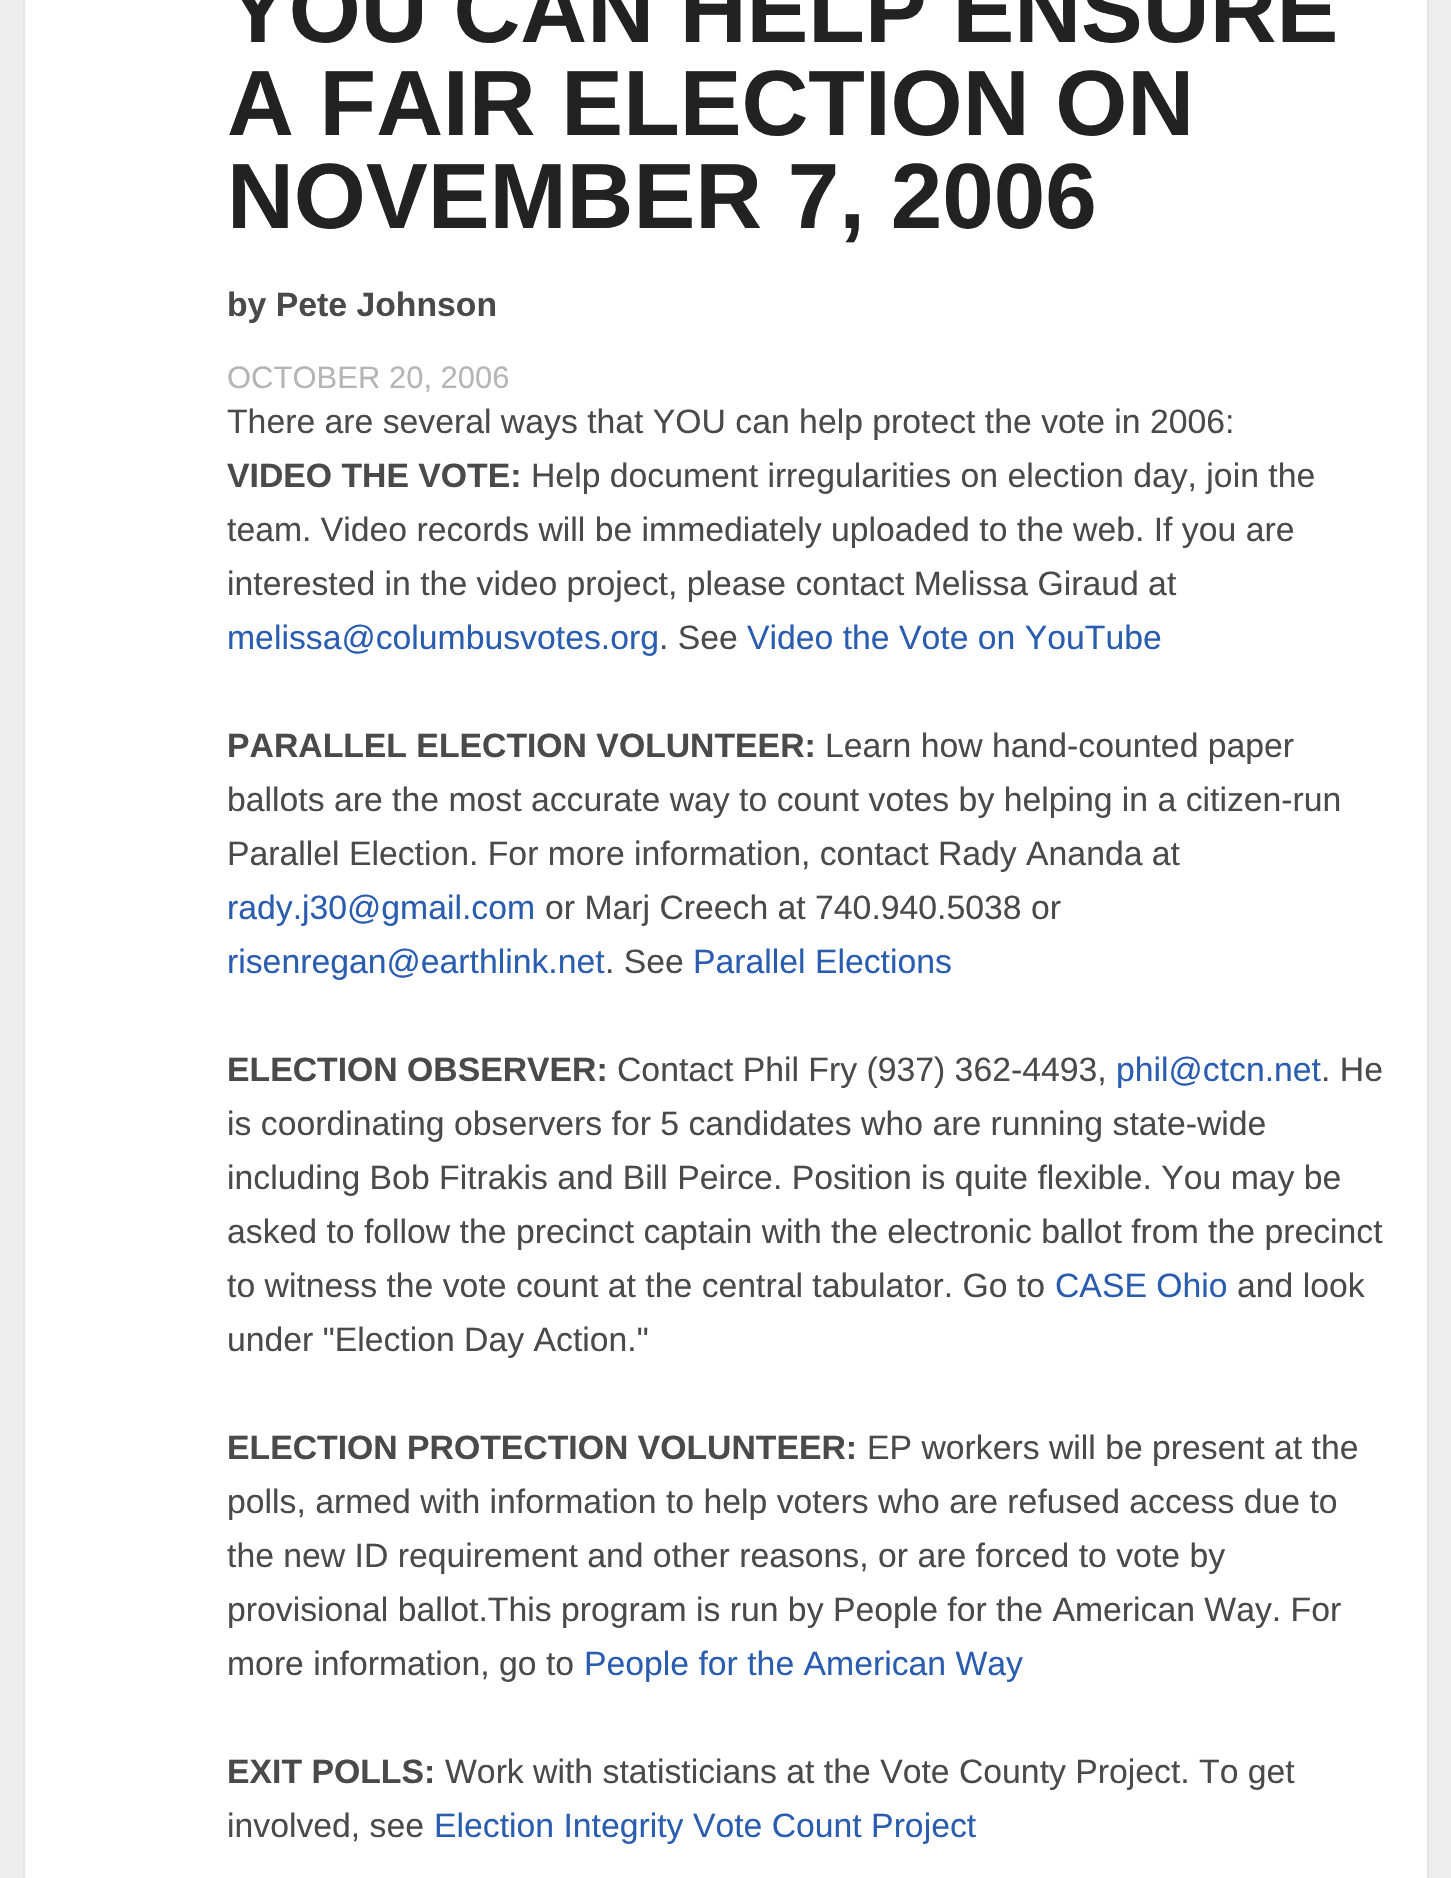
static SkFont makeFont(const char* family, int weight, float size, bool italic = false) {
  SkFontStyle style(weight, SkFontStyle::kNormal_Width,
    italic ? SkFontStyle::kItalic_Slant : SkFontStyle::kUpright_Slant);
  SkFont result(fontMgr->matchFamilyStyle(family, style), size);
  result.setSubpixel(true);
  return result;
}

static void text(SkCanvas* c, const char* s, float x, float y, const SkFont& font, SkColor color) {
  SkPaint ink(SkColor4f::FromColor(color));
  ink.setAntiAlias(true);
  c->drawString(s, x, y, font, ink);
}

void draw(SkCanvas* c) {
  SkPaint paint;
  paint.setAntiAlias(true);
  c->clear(0xffeeeeee);
  paint.setColor(0xffffffff);
  c->drawRect(SkRect::MakeLTRB(24, -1, 1428, 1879), paint);
  paint.setStyle(SkPaint::kStroke_Style);
  paint.setStrokeWidth(2);
  paint.setColor(0xffe5e5e5);
  c->drawRect(SkRect::MakeLTRB(24, -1, 1428, 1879), paint);
  SkFont face1 = makeFont("Liberation Sans", 700, 92.6f);
  text(c, "YOU CAN HELP ENSURE", 227, 42, face1, 0xff222222);
  text(c, "A FAIR ELECTION ON", 227, 135, face1, 0xff222222);
  text(c, "NOVEMBER 7, 2006", 227, 228, face1, 0xff222222);
  SkFont face2 = makeFont("Liberation Sans", 700, 33.75f);
  text(c, "by Pete Johnson", 227, 316, face2, 0xff4a4a4a);
  SkFont face3 = makeFont("Liberation Sans", 400, 31);
  text(c, "OCTOBER 20, 2006", 227, 388, face3, 0xffb5b5b5);
  SkFont face4 = makeFont("Liberation Sans", 400, 33.75f);
  text(c, "There are several ways that YOU can help protect the vote in 2006:", 227, 433, face4, 0xff4a4a4a);
  text(c, "VIDEO THE VOTE:", 227, 487, face2, 0xff4a4a4a);
  text(c, "Help document irregularities on election day, join the", 531, 487, face4, 0xff4a4a4a);
  text(c, "team. Video records will be immediately uploaded to the web. If you are", 227, 541, face4, 0xff4a4a4a);
  text(c, "interested in the video project, please contact Melissa Giraud at", 227, 595, face4, 0xff4a4a4a);
  text(c, "melissa@columbusvotes.org", 227, 649, face4, 0xff2a5db0);
  text(c, ". See", 659, 649, face4, 0xff4a4a4a);
  text(c, "Video the Vote on YouTube", 747, 649, face4, 0xff2a5db0);
  text(c, "PARALLEL ELECTION VOLUNTEER:", 227, 757, face2, 0xff4a4a4a);
  text(c, "Learn how hand-counted paper", 825, 757, face4, 0xff4a4a4a);
  text(c, "ballots are the most accurate way to count votes by helping in a citizen-run", 227, 811, face4, 0xff4a4a4a);
  text(c, "Parallel Election. For more information, contact Rady Ananda at", 227, 865, face4, 0xff4a4a4a);
  text(c, "rady.j30@gmail.com", 227, 919, face4, 0xff2a5db0);
  text(c, "or Marj Creech at 740.940.5038 or", 545, 919, face4, 0xff4a4a4a);
  text(c, "risenregan@earthlink.net", 227, 973, face4, 0xff2a5db0);
  text(c, ". See", 605, 973, face4, 0xff4a4a4a);
  text(c, "Parallel Elections", 693, 973, face4, 0xff2a5db0);
  text(c, "ELECTION OBSERVER:", 227, 1081, face2, 0xff4a4a4a);
  text(c, "Contact Phil Fry (937) 362-4493,", 617, 1081, face4, 0xff4a4a4a);
  text(c, "phil@ctcn.net", 1116, 1081, face4, 0xff2a5db0);
  text(c, ". He", 1321, 1081, face4, 0xff4a4a4a);
  text(c, "is coordinating observers for 5 candidates who are running state-wide", 227, 1135, face4, 0xff4a4a4a);
  text(c, "including Bob Fitrakis and Bill Peirce. Position is quite flexible. You may be", 227, 1189, face4, 0xff4a4a4a);
  text(c, "asked to follow the precinct captain with the electronic ballot from the precinct", 227, 1243, face4, 0xff4a4a4a);
  text(c, "to witness the vote count at the central tabulator. Go to", 227, 1297, face4, 0xff4a4a4a);
  text(c, "CASE Ohio", 1055, 1297, face4, 0xff2a5db0);
  text(c, "and look", 1237, 1297, face4, 0xff4a4a4a);
  text(c, "under \"Election Day Action.\"", 227, 1351, face4, 0xff4a4a4a);
  text(c, "ELECTION PROTECTION VOLUNTEER:", 227, 1459, face2, 0xff4a4a4a);
  text(c, "EP workers will be present at the", 867, 1459, face4, 0xff4a4a4a);
  text(c, "polls, armed with information to help voters who are refused access due to", 227, 1513, face4, 0xff4a4a4a);
  text(c, "the new ID requirement and other reasons, or are forced to vote by", 227, 1567, face4, 0xff4a4a4a);
  text(c, "provisional ballot.This program is run by People for the American Way. For", 227, 1621, face4, 0xff4a4a4a);
  text(c, "more information, go to", 227, 1675, face4, 0xff4a4a4a);
  text(c, "People for the American Way", 584, 1675, face4, 0xff2a5db0);
  text(c, "EXIT POLLS:", 227, 1783, face2, 0xff4a4a4a);
  text(c, "Work with statisticians at the Vote County Project. To get", 445, 1783, face4, 0xff4a4a4a);
  text(c, "involved, see", 227, 1837, face4, 0xff4a4a4a);
  text(c, "Election Integrity Vote Count Project", 434, 1837, face4, 0xff2a5db0);
}
